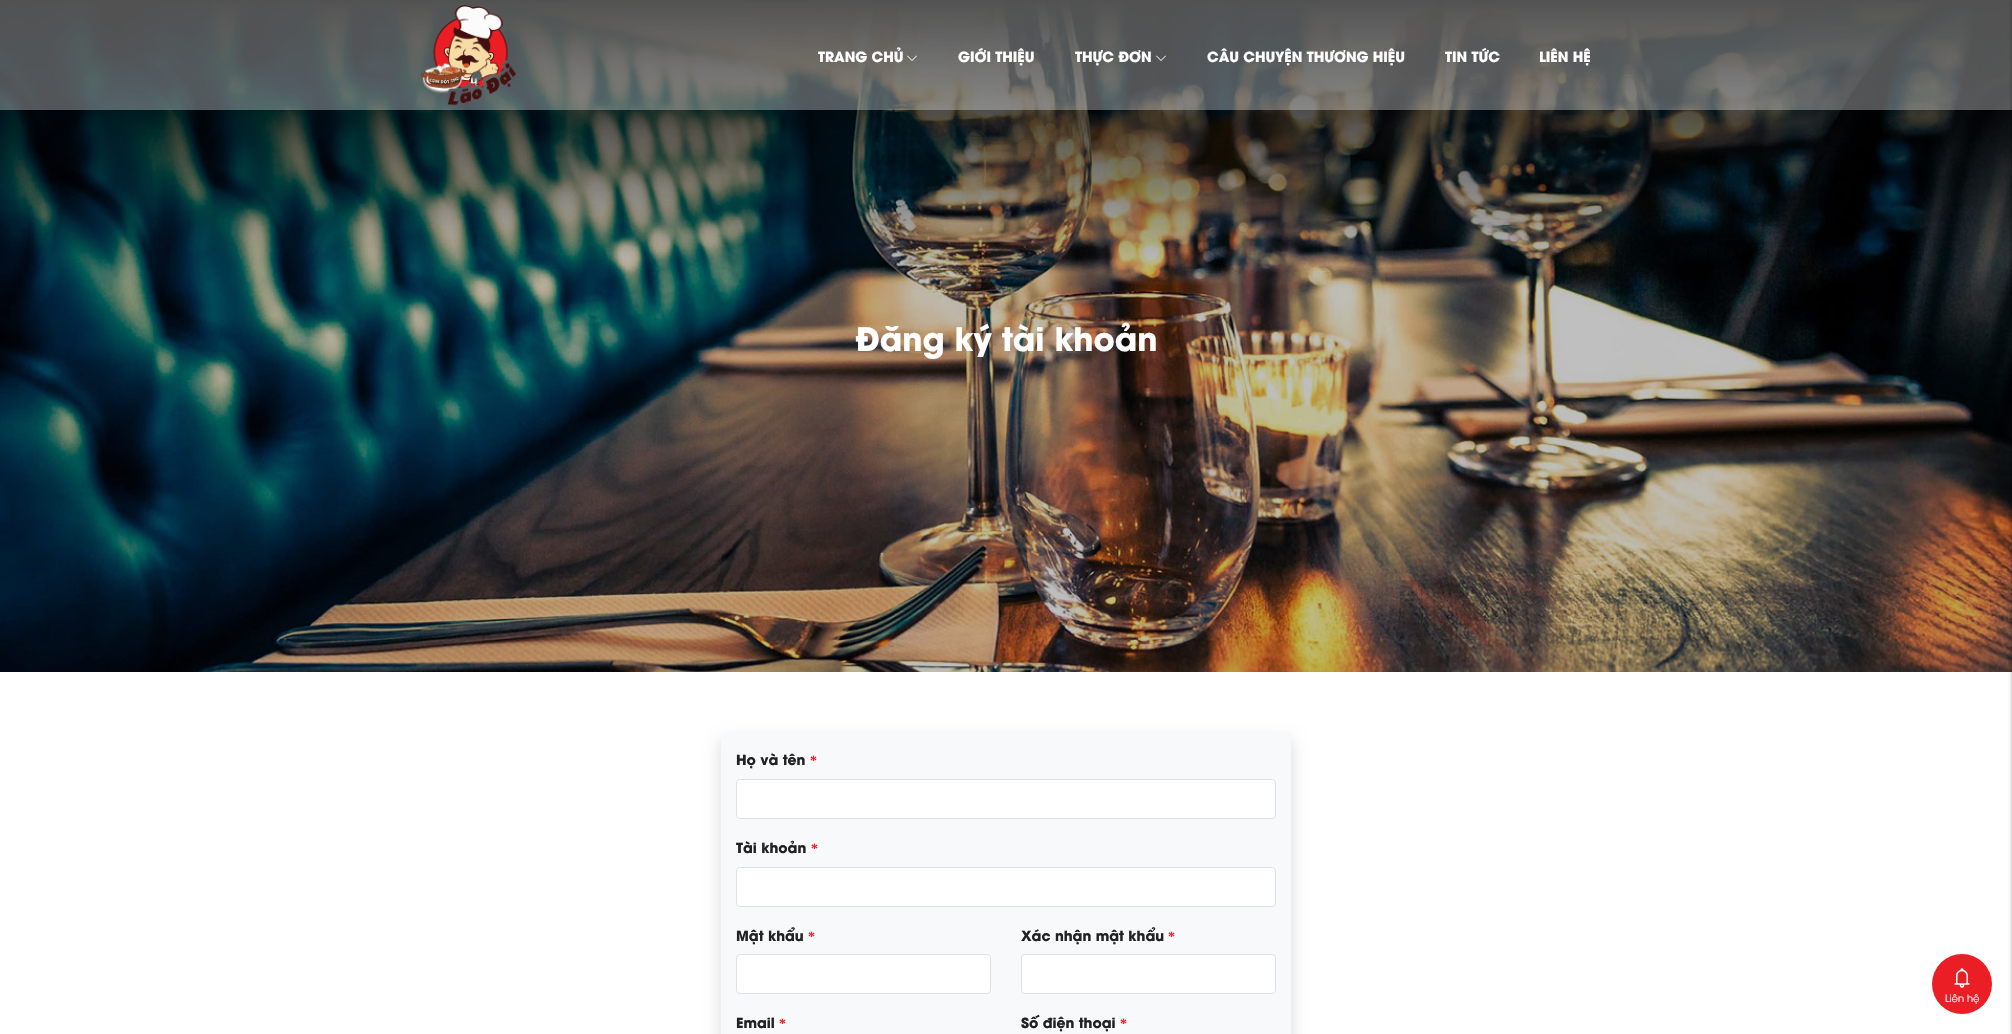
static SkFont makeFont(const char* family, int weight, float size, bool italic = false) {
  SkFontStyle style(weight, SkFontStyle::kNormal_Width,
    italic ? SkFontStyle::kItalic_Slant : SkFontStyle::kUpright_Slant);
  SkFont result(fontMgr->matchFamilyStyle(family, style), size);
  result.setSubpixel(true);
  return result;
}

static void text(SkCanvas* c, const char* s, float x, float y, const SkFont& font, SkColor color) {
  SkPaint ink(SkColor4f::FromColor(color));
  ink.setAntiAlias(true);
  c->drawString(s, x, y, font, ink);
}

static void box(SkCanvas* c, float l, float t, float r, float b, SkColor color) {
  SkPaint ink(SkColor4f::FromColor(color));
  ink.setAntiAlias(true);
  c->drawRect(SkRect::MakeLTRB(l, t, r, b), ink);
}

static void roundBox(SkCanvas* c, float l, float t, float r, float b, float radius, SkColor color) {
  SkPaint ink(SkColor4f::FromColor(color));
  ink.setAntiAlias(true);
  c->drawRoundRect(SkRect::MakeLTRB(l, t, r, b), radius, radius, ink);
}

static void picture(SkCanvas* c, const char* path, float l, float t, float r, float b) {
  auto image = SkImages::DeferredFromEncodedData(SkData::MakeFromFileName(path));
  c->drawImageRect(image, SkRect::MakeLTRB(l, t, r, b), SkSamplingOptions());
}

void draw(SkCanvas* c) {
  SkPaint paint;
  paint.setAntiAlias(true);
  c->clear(0xffffffff);
  picture(c, "img_04.png", 0, 0, 2012, 672);
  box(c, 0, 0, 2012, 110, 0x52ffffff);
  picture(c, "img_01.png", 421, 5, 516, 105);
  SkFont face1 = makeFont("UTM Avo", 700, 14);
  text(c, "TRANG CHỦ", 818, 62, face1, 0xffffffff);
  picture(c, "img_02.png", 907, 55, 917, 61);
  text(c, "GIỚI THIỆU", 958, 62, face1, 0xffffffff);
  text(c, "THỰC ĐƠN", 1075, 62, face1, 0xffffffff);
  picture(c, "img_03.png", 1156, 55, 1166, 61);
  text(c, "CÂU CHUYỆN THƯƠNG HIỆU", 1207, 62, face1, 0xffffffff);
  text(c, "TIN TỨC", 1445, 62, face1, 0xffffffff);
  text(c, "LIÊN HỆ", 1539, 62, face1, 0xffffffff);
  paint.setColor(0x33000000);
  paint.setMaskFilter(SkMaskFilter::MakeBlur(kNormal_SkBlurStyle, 1.5f));
  c->drawRect(SkRect::MakeLTRB(2011, 0, 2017, 1034), paint);
  paint.setMaskFilter(nullptr);
  SkFont face2 = makeFont("UTM Avo", 700, 32);
  text(c, "Đăng ký tài khoản", 855, 351, face2, 0xffffffff);
  paint.setColor(0x26000000);
  paint.setMaskFilter(SkMaskFilter::MakeBlur(kNormal_SkBlurStyle, 8));
  c->drawRoundRect(SkRect::MakeLTRB(721, 740, 1291, 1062), 4, 4, paint);
  paint.setMaskFilter(nullptr);
  roundBox(c, 721, 732, 1291, 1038, 4, 0xfff8f9fa);
  text(c, "Họ và tên", 736, 765, face1, 0xff222222);
  SkFont face3 = makeFont("Liberation Serif", 700, 14);
  text(c, "*", 810, 765, face3, 0xffeb1e25);
  paint.setColor(0xffffffff);
  c->drawRoundRect(SkRect::MakeLTRB(736.5f, 779.5f, 1275.5f, 818.5f), 3.5f, 3.5f, paint);
  paint.setStyle(SkPaint::kStroke_Style);
  paint.setStrokeWidth(1);
  paint.setColor(0xffdee2e6);
  c->drawRoundRect(SkRect::MakeLTRB(736.5f, 779.5f, 1275.5f, 818.5f), 3.5f, 3.5f, paint);
  text(c, "Tài khoản", 736, 853, face1, 0xff222222);
  text(c, "*", 811, 853, face3, 0xffeb1e25);
  paint.setStyle(SkPaint::kFill_Style);
  paint.setColor(0xffffffff);
  c->drawRoundRect(SkRect::MakeLTRB(736.5f, 867.5f, 1275.5f, 906.5f), 3.5f, 3.5f, paint);
  paint.setStyle(SkPaint::kStroke_Style);
  paint.setColor(0xffdee2e6);
  c->drawRoundRect(SkRect::MakeLTRB(736.5f, 867.5f, 1275.5f, 906.5f), 3.5f, 3.5f, paint);
  text(c, "Mật khẩu", 736, 941, face1, 0xff222222);
  text(c, "*", 808, 941, face3, 0xffeb1e25);
  paint.setStyle(SkPaint::kFill_Style);
  paint.setColor(0xffffffff);
  c->drawRoundRect(SkRect::MakeLTRB(736.5f, 954.5f, 990.5f, 993.5f), 3.5f, 3.5f, paint);
  paint.setStyle(SkPaint::kStroke_Style);
  paint.setColor(0xffdee2e6);
  c->drawRoundRect(SkRect::MakeLTRB(736.5f, 954.5f, 990.5f, 993.5f), 3.5f, 3.5f, paint);
  text(c, "Xác nhận mật khẩu", 1021, 941, face1, 0xff222222);
  text(c, "*", 1168, 941, face3, 0xffeb1e25);
  paint.setStyle(SkPaint::kFill_Style);
  paint.setColor(0xffffffff);
  c->drawRoundRect(SkRect::MakeLTRB(1021.5f, 954.5f, 1275.5f, 993.5f), 3.5f, 3.5f, paint);
  paint.setStyle(SkPaint::kStroke_Style);
  paint.setColor(0xffdee2e6);
  c->drawRoundRect(SkRect::MakeLTRB(1021.5f, 954.5f, 1275.5f, 993.5f), 3.5f, 3.5f, paint);
  text(c, "Email", 736, 1028, face1, 0xff222222);
  text(c, "*", 779, 1028, face3, 0xffeb1e25);
  text(c, "Số điện thoại", 1021, 1028, face1, 0xff222222);
  text(c, "*", 1120, 1028, face3, 0xffeb1e25);
  paint.setStyle(SkPaint::kFill_Style);
  paint.setColor(0xffeb1e25);
  c->drawCircle(1962, 984, 30, paint);
  picture(c, "img_05.png", 1954, 968, 1970, 988);
  SkFont face4 = makeFont("UTM Avo", 400, 10);
  text(c, "Liên hệ", 1945, 1002, face4, 0xffffffff);
}
